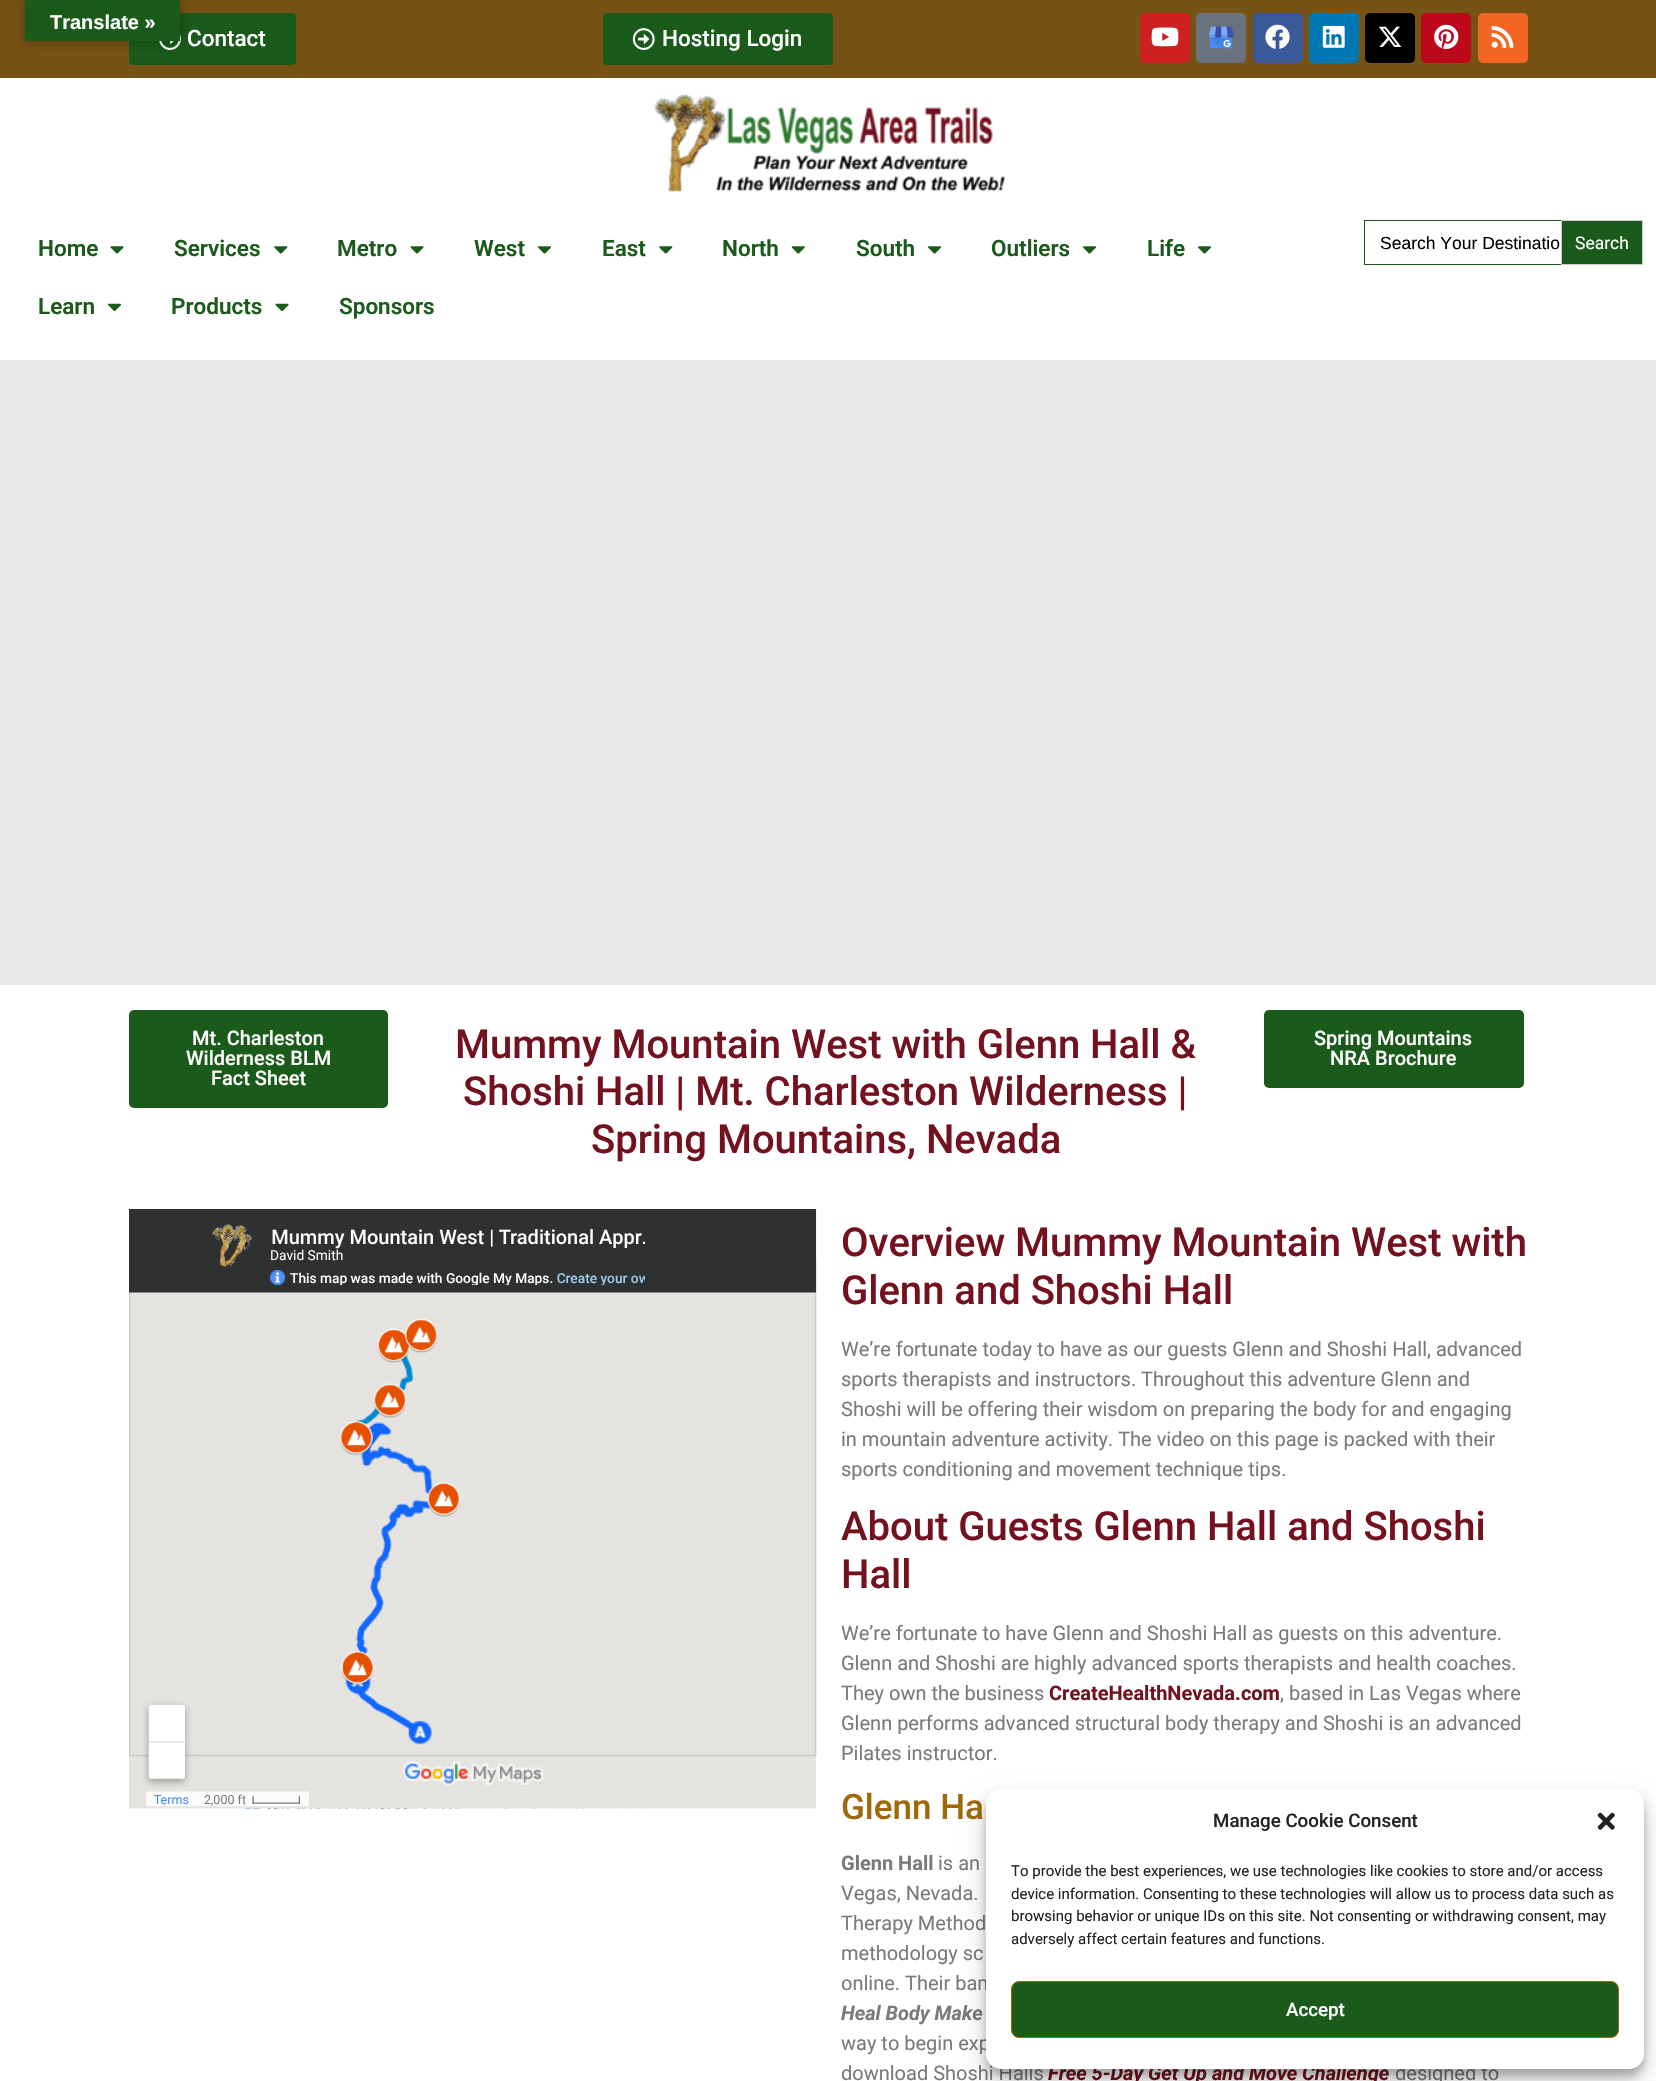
static SkFont makeFont(const char* family, int weight, float size, bool italic = false) {
  SkFontStyle style(weight, SkFontStyle::kNormal_Width,
    italic ? SkFontStyle::kItalic_Slant : SkFontStyle::kUpright_Slant);
  SkFont result(fontMgr->matchFamilyStyle(family, style), size);
  result.setSubpixel(true);
  return result;
}

static void text(SkCanvas* c, const char* s, float x, float y, const SkFont& font, SkColor color) {
  SkPaint ink(SkColor4f::FromColor(color));
  ink.setAntiAlias(true);
  c->drawString(s, x, y, font, ink);
}

static void box(SkCanvas* c, float l, float t, float r, float b, SkColor color) {
  SkPaint ink(SkColor4f::FromColor(color));
  ink.setAntiAlias(true);
  c->drawRect(SkRect::MakeLTRB(l, t, r, b), ink);
}

static void roundBox(SkCanvas* c, float l, float t, float r, float b, float radius, SkColor color) {
  SkPaint ink(SkColor4f::FromColor(color));
  ink.setAntiAlias(true);
  c->drawRoundRect(SkRect::MakeLTRB(l, t, r, b), radius, radius, ink);
}

static void picture(SkCanvas* c, const char* path, float l, float t, float r, float b) {
  auto image = SkImages::DeferredFromEncodedData(SkData::MakeFromFileName(path));
  c->drawImageRect(image, SkRect::MakeLTRB(l, t, r, b), SkSamplingOptions());
}

void draw(SkCanvas* c) {
  SkPaint paint;
  paint.setAntiAlias(true);
  c->clear(0xffffffff);
  box(c, 0, 0, 1656, 78, 0xff765214);
  roundBox(c, 129, 13, 296, 65, 4, 0xff1a5a1a);
  picture(c, "img_01.png", 159, 34, 181, 50);
  paint.setColor(0x4d000000);
  paint.setMaskFilter(SkMaskFilter::MakeBlur(kNormal_SkBlurStyle, 5.5f));
  c->drawRect(SkRect::MakeLTRB(25, 0, 180, 41), paint);
  paint.setMaskFilter(nullptr);
  box(c, 25, 0, 180, 41, 0xff1a5a1a);
  SkFont face1 = makeFont("Liberation Sans", 700, 20);
  text(c, "Translate »", 50, 29, face1, 0xffffffff);
  SkFont face2 = makeFont("Roboto", 500, 22.5f);
  text(c, "Contact", 187, 46, face2, 0xffffffff);
  roundBox(c, 603, 13, 833, 65, 4, 0xff1a5a1a);
  picture(c, "img_02.png", 632, 28, 655, 50);
  text(c, "Hosting Login", 662, 46, face2, 0xffffffff);
  roundBox(c, 1140, 13, 1190, 63, 5, 0xffcd201f);
  picture(c, "img_03.png", 1151, 27, 1179, 47);
  roundBox(c, 1196, 13, 1246, 63, 5, 0xff69727d);
  picture(c, "img_04.png", 1209, 26, 1234, 49);
  roundBox(c, 1253, 13, 1303, 63, 5, 0xff3b5998);
  picture(c, "img_05.png", 1265, 24, 1290, 49);
  roundBox(c, 1309, 13, 1359, 63, 5, 0xff0077b5);
  picture(c, "img_06.png", 1322, 25, 1345, 48);
  roundBox(c, 1365, 13, 1415, 63, 5, 0xff000000);
  picture(c, "img_07.png", 1379, 26, 1402, 47);
  roundBox(c, 1421, 13, 1471, 63, 5, 0xffbd081c);
  picture(c, "img_08.png", 1434, 24, 1459, 49);
  roundBox(c, 1478, 13, 1528, 63, 5, 0xfff26522);
  picture(c, "img_09.png", 1491, 25, 1514, 48);
  picture(c, "img_10.png", 654, 94, 1006, 192);
  SkFont face3 = makeFont("Roboto", 600, 22.5f);
  text(c, "Home", 38, 256, face3, 0xff1a5a1a);
  picture(c, "img_11.png", 110, 246, 124, 254);
  text(c, "Services", 174, 256, face3, 0xff1a5a1a);
  picture(c, "img_12.png", 274, 246, 288, 254);
  text(c, "Metro", 337, 256, face3, 0xff1a5a1a);
  picture(c, "img_11.png", 410, 246, 424, 254);
  text(c, "West", 474, 256, face3, 0xff1a5a1a);
  picture(c, "img_13.png", 538, 246, 551, 254);
  text(c, "East", 602, 256, face3, 0xff1a5a1a);
  picture(c, "img_12.png", 659, 246, 673, 254);
  text(c, "North", 722, 256, face3, 0xff1a5a1a);
  picture(c, "img_14.png", 791, 246, 805, 254);
  text(c, "South", 856, 256, face3, 0xff1a5a1a);
  picture(c, "img_13.png", 928, 246, 941, 254);
  text(c, "Outliers", 991, 256, face3, 0xff1a5a1a);
  picture(c, "img_13.png", 1083, 246, 1096, 254);
  text(c, "Life", 1147, 256, face3, 0xff1a5a1a);
  picture(c, "img_13.png", 1198, 246, 1211, 254);
  text(c, "Learn", 38, 314, face3, 0xff1a5a1a);
  picture(c, "img_15.png", 108, 303, 121, 312);
  text(c, "Products", 171, 314, face3, 0xff1a5a1a);
  picture(c, "img_16.png", 275, 303, 289, 312);
  text(c, "Sponsors", 339, 314, face3, 0xff1a5a1a);
  paint.setStyle(SkPaint::kStroke_Style);
  paint.setStrokeWidth(1);
  paint.setColor(0xff1a5a1a);
  c->drawRect(SkRect::MakeLTRB(1364.5f, 220.5f, 1642.5f, 264.5f), paint);
  SkFont face4 = makeFont("Liberation Sans", 400, 17.5f);
  text(c, "Search Your Destinatio", 1380, 249, face4, 0xff000000);
  paint.setStyle(SkPaint::kFill_Style);
  c->drawRect(SkRect::MakeLTRB(1561.5f, 220.5f, 1642.5f, 264.5f), paint);
  paint.setStyle(SkPaint::kStroke_Style);
  paint.setColor(0xffcccccc);
  c->drawRect(SkRect::MakeLTRB(1561.5f, 220.5f, 1642.5f, 264.5f), paint);
  SkFont face5 = makeFont("Roboto", 400, 17.5f);
  text(c, "Search", 1575, 249, face5, 0xffffffff);
  box(c, 0, 360, 1656, 985, 0xffe9e9e9);
  roundBox(c, 129, 1010, 388, 1108, 5, 0xff1a5a1a);
  SkFont face6 = makeFont("Roboto", 500, 20);
  text(c, "Mt. Charleston", 192, 1045, face6, 0xffffffff);
  text(c, "Wilderness BLM", 186, 1065, face6, 0xffffffff);
  text(c, "Fact Sheet", 211, 1085, face6, 0xffffffff);
  SkFont face7 = makeFont("Roboto", 500, 40);
  text(c, "Mummy Mountain West with Glenn Hall &", 455, 1058, face7, 0xff73111e);
  text(c, "Shoshi Hall | Mt. Charleston Wilderness |", 463, 1105, face7, 0xff73111e);
  text(c, "Spring Mountains, Nevada", 591, 1153, face7, 0xff73111e);
  roundBox(c, 1264, 1010, 1524, 1088, 5, 0xff1a5a1a);
  text(c, "Spring Mountains", 1314, 1045, face6, 0xffffffff);
  text(c, "NRA Brochure", 1330, 1065, face6, 0xffffffff);
  picture(c, "img_17.png", 129, 1209, 817, 1809);
  text(c, "Overview Mummy Mountain West with", 841, 1256, face7, 0xff73111e);
  text(c, "Glenn and Shoshi Hall", 841, 1304, face7, 0xff73111e);
  SkFont face8 = makeFont("Roboto", 400, 20);
  text(c, "We’re fortunate today to have as our guests Glenn and Shoshi Hall, advanced", 841, 1356, face8, 0xff7a7a7a);
  text(c, "sports therapists and instructors. Throughout this adventure Glenn and", 841, 1386, face8, 0xff7a7a7a);
  text(c, "Shoshi will be offering their wisdom on preparing the body for and engaging", 841, 1416, face8, 0xff7a7a7a);
  text(c, "in mountain adventure activity. The video on this page is packed with their", 841, 1446, face8, 0xff7a7a7a);
  text(c, "sports conditioning and movement technique tips.", 841, 1476, face8, 0xff7a7a7a);
  text(c, "About Guests Glenn Hall and Shoshi", 841, 1540, face7, 0xff73111e);
  text(c, "Hall", 841, 1588, face7, 0xff73111e);
  text(c, "We’re fortunate to have Glenn and Shoshi Hall as guests on this adventure.", 841, 1640, face8, 0xff7a7a7a);
  text(c, "Glenn and Shoshi are highly advanced sports therapists and health coaches.", 841, 1670, face8, 0xff7a7a7a);
  text(c, "They own the business", 841, 1700, face8, 0xff7a7a7a);
  SkFont face9 = makeFont("Roboto", 700, 20);
  text(c, "CreateHealthNevada.com", 1049, 1700, face9, 0xff73111e);
  text(c, ", based in Las Vegas where", 1280, 1700, face8, 0xff7a7a7a);
  text(c, "Glenn performs advanced structural body therapy and Shoshi is an advanced", 841, 1730, face8, 0xff7a7a7a);
  text(c, "Pilates instructor.", 841, 1760, face8, 0xff7a7a7a);
  SkFont face10 = makeFont("Roboto", 500, 35);
  text(c, "Glenn Ha", 841, 1819, face10, 0xff9f680b);
  text(c, "Glenn Hall", 841, 1870, face9, 0xff7a7a7a);
  text(c, "is an", 938, 1870, face8, 0xff7a7a7a);
  text(c, "Vegas, Nevada.", 841, 1900, face8, 0xff7a7a7a);
  text(c, "Therapy Method", 841, 1930, face8, 0xff7a7a7a);
  text(c, "methodology sc", 841, 1960, face8, 0xff7a7a7a);
  text(c, "online. Their ban", 841, 1990, face8, 0xff7a7a7a);
  SkFont face11 = makeFont("Roboto", 700, 20, true);
  text(c, "Heal Body Make", 841, 2020, face11, 0xff7a7a7a);
  text(c, "way to begin exp", 841, 2050, face8, 0xff7a7a7a);
  text(c, "download Shoshi Halls", 841, 2080, face8, 0xff7a7a7a);
  text(c, "Free 5-Day Get Up and Move Challenge", 1048, 2080, face11, 0xff73111e);
  text(c, "designed to", 1395, 2080, face8, 0xff7a7a7a);
  paint.setStyle(SkPaint::kFill_Style);
  paint.setColor(0x3b000000);
  paint.setMaskFilter(SkMaskFilter::MakeBlur(kNormal_SkBlurStyle, 4));
  c->drawRoundRect(SkRect::MakeLTRB(986, 1796, 1644, 2076), 15, 15, paint);
  paint.setMaskFilter(nullptr);
  paint.setColor(0x30000000);
  paint.setMaskFilter(SkMaskFilter::MakeBlur(kNormal_SkBlurStyle, 12.5f));
  c->drawRoundRect(SkRect::MakeLTRB(986, 1801, 1644, 2081), 15, 15, paint);
  paint.setMaskFilter(nullptr);
  roundBox(c, 986, 1789, 1644, 2069, 15, 0xffffffff);
  SkFont face12 = makeFont("Roboto", 500, 18.75f);
  text(c, "Manage Cookie Consent", 1213, 1827, face12, 0xff222222);
  picture(c, "img_18.png", 1597, 1812, 1615, 1830);
  SkFont face13 = makeFont("Roboto", 400, 15);
  text(c, "To provide the best experiences, we use technologies like cookies to store and/or access", 1011, 1876, face13, 0xff222222);
  text(c, "device information. Consenting to these technologies will allow us to process data such as", 1011, 1899, face13, 0xff222222);
  text(c, "browsing behavior or unique IDs on this site. Not consenting or withdrawing consent, may", 1011, 1921, face13, 0xff222222);
  text(c, "adversely affect certain features and functions.", 1011, 1944, face13, 0xff222222);
  paint.setColor(0xff1a5a1a);
  c->drawRoundRect(SkRect::MakeLTRB(1011.5f, 1981.5f, 1618.5f, 2037.5f), 7.5f, 7.5f, paint);
  paint.setStyle(SkPaint::kStroke_Style);
  paint.setColor(0xff9f680b);
  c->drawRoundRect(SkRect::MakeLTRB(1011.5f, 1981.5f, 1618.5f, 2037.5f), 7.5f, 7.5f, paint);
  text(c, "Accept", 1286, 2016, face12, 0xffffffff);
}
